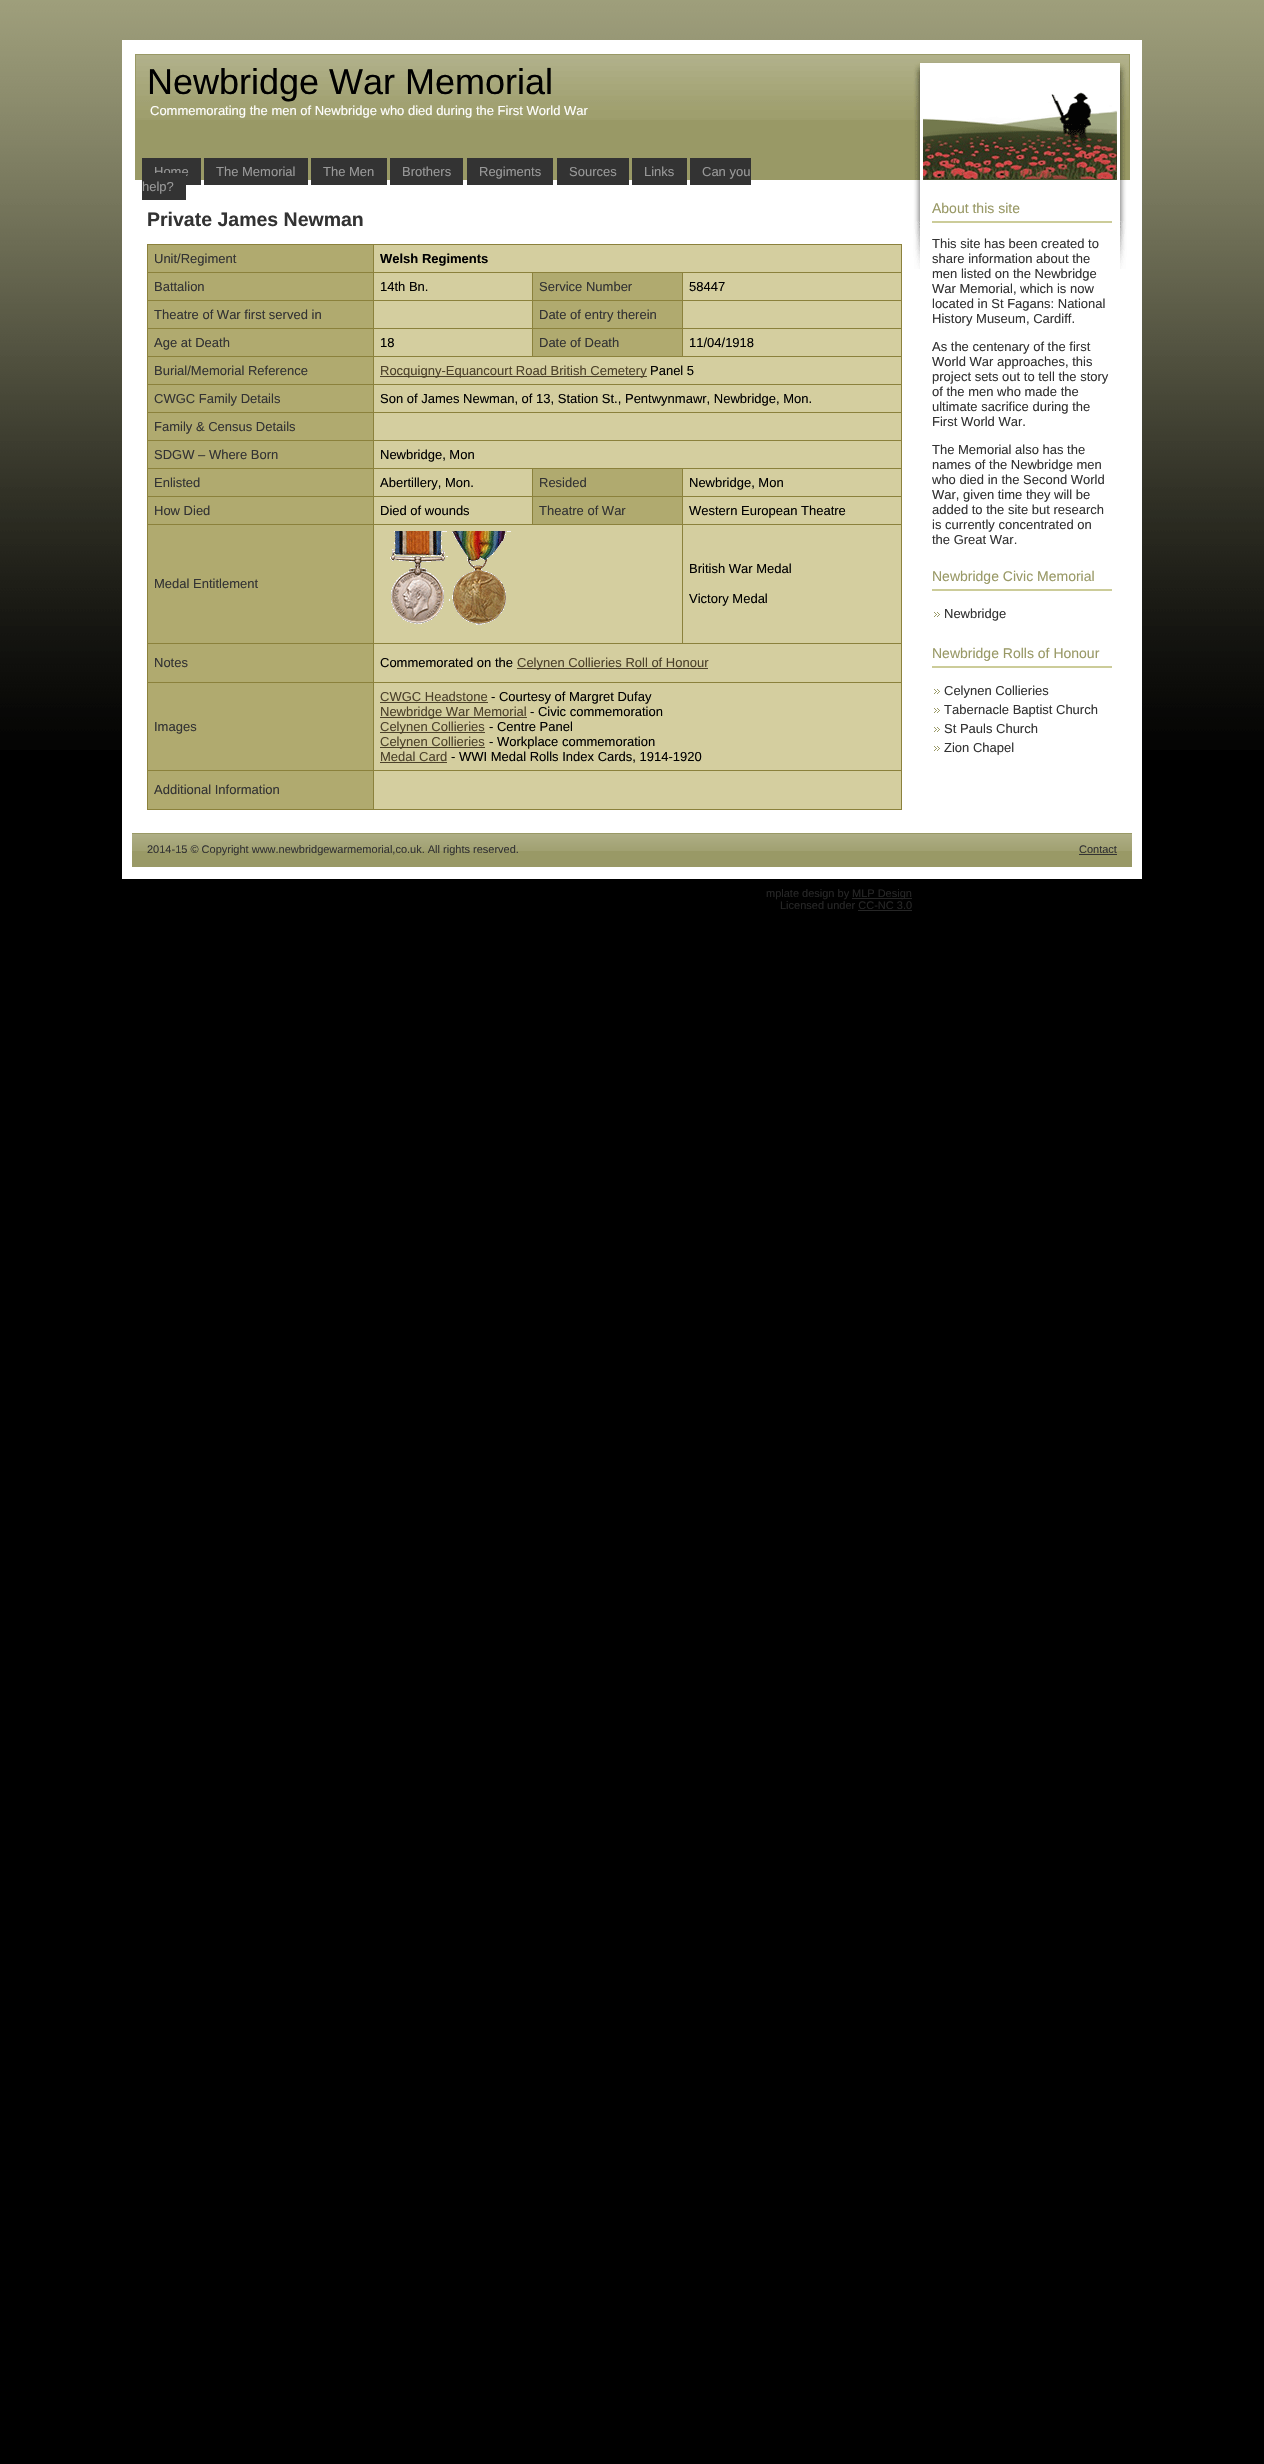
static SkFont makeFont(const char* family, int weight, float size, bool italic = false) {
  SkFontStyle style(weight, SkFontStyle::kNormal_Width,
    italic ? SkFontStyle::kItalic_Slant : SkFontStyle::kUpright_Slant);
  SkFont result(fontMgr->matchFamilyStyle(family, style), size);
  result.setSubpixel(true);
  return result;
}

static void text(SkCanvas* c, const char* s, float x, float y, const SkFont& font, SkColor color) {
  SkPaint ink(SkColor4f::FromColor(color));
  ink.setAntiAlias(true);
  c->drawString(s, x, y, font, ink);
}

static void box(SkCanvas* c, float l, float t, float r, float b, SkColor color) {
  SkPaint ink(SkColor4f::FromColor(color));
  ink.setAntiAlias(true);
  c->drawRect(SkRect::MakeLTRB(l, t, r, b), ink);
}

static void picture(SkCanvas* c, const char* path, float l, float t, float r, float b) {
  auto image = SkImages::DeferredFromEncodedData(SkData::MakeFromFileName(path));
  c->drawImageRect(image, SkRect::MakeLTRB(l, t, r, b), SkSamplingOptions());
}

void draw(SkCanvas* c) {
  SkPaint paint;
  paint.setAntiAlias(true);
  c->clear(0xff000000);
  picture(c, "img_01.png", 0, 0, 1264, 750);
  box(c, 122, 40, 1142, 879, 0xffffffff);
  picture(c, "img_02.png", 135, 54, 1130, 269);
  SkFont face1 = makeFont("Liberation Sans", 400, 36);
  text(c, "Newbridge War Memorial", 147, 94, face1, 0xff000000);
  SkFont face2 = makeFont("Liberation Sans", 400, 13);
  text(c, "Commemorating the men of Newbridge who died during the First World War", 150, 115, face2, 0xffffffff);
  box(c, 142, 158, 201, 185, 0xff333333);
  text(c, "Home", 154, 176, face2, 0xff999999);
  box(c, 204, 158, 308, 185, 0xff333333);
  text(c, "The Memorial", 216, 176, face2, 0xff999999);
  box(c, 311, 158, 387, 185, 0xff333333);
  text(c, "The Men", 323, 176, face2, 0xff999999);
  box(c, 390, 158, 463, 185, 0xff333333);
  text(c, "Brothers", 402, 176, face2, 0xff999999);
  box(c, 467, 158, 553, 185, 0xff333333);
  text(c, "Regiments", 479, 176, face2, 0xff999999);
  box(c, 557, 158, 629, 185, 0xff333333);
  text(c, "Sources", 569, 176, face2, 0xff999999);
  box(c, 632, 158, 687, 185, 0xff333333);
  text(c, "Links", 644, 176, face2, 0xff999999);
  box(c, 690, 158, 751, 185, 0xff333333);
  text(c, "Can you", 702, 176, face2, 0xff999999);
  box(c, 142, 173, 186, 200, 0xff333333);
  text(c, "help?", 142, 191, face2, 0xff999999);
  SkFont face3 = makeFont("Liberation Sans", 700, 19.5f);
  text(c, "Private James Newman", 147, 226, face3, 0xff333333);
  box(c, 147, 244, 902, 245, 0xff8b813c);
  box(c, 901, 244, 902, 810, 0xff8b813c);
  box(c, 147, 809, 902, 810, 0xff8b813c);
  box(c, 147, 244, 148, 810, 0xff8b813c);
  box(c, 148, 245, 373, 272, 0xffb0aa6f);
  text(c, "Unit/Regiment", 154, 263, face2, 0xff333333);
  box(c, 374, 245, 901, 272, 0xffd4ce9f);
  box(c, 682, 272, 902, 273, 0xff8b813c);
  box(c, 682, 300, 902, 301, 0xff8b813c);
  box(c, 682, 328, 902, 329, 0xff8b813c);
  box(c, 373, 356, 902, 357, 0xff8b813c);
  box(c, 682, 328, 683, 357, 0xff8b813c);
  box(c, 532, 328, 683, 329, 0xff8b813c);
  box(c, 682, 300, 683, 329, 0xff8b813c);
  box(c, 532, 300, 683, 301, 0xff8b813c);
  box(c, 682, 272, 683, 301, 0xff8b813c);
  box(c, 532, 272, 683, 273, 0xff8b813c);
  box(c, 532, 328, 533, 357, 0xff8b813c);
  box(c, 373, 328, 533, 329, 0xff8b813c);
  box(c, 532, 300, 533, 329, 0xff8b813c);
  box(c, 373, 300, 533, 301, 0xff8b813c);
  box(c, 532, 272, 533, 301, 0xff8b813c);
  box(c, 373, 272, 533, 273, 0xff8b813c);
  box(c, 373, 384, 902, 385, 0xff8b813c);
  box(c, 373, 412, 902, 413, 0xff8b813c);
  box(c, 373, 440, 902, 441, 0xff8b813c);
  box(c, 682, 468, 902, 469, 0xff8b813c);
  box(c, 682, 496, 902, 497, 0xff8b813c);
  box(c, 682, 524, 902, 525, 0xff8b813c);
  box(c, 373, 643, 902, 644, 0xff8b813c);
  box(c, 682, 524, 683, 644, 0xff8b813c);
  box(c, 373, 524, 683, 525, 0xff8b813c);
  box(c, 682, 496, 683, 525, 0xff8b813c);
  box(c, 532, 496, 683, 497, 0xff8b813c);
  box(c, 682, 468, 683, 497, 0xff8b813c);
  box(c, 532, 468, 683, 469, 0xff8b813c);
  box(c, 532, 496, 533, 525, 0xff8b813c);
  box(c, 373, 496, 533, 497, 0xff8b813c);
  box(c, 532, 468, 533, 497, 0xff8b813c);
  box(c, 373, 468, 533, 469, 0xff8b813c);
  box(c, 373, 682, 902, 683, 0xff8b813c);
  box(c, 373, 770, 902, 771, 0xff8b813c);
  box(c, 373, 770, 374, 810, 0xff8b813c);
  box(c, 147, 770, 374, 771, 0xff8b813c);
  box(c, 373, 682, 374, 771, 0xff8b813c);
  box(c, 147, 682, 374, 683, 0xff8b813c);
  box(c, 373, 643, 374, 683, 0xff8b813c);
  box(c, 147, 643, 374, 644, 0xff8b813c);
  box(c, 373, 524, 374, 644, 0xff8b813c);
  box(c, 147, 524, 374, 525, 0xff8b813c);
  box(c, 373, 496, 374, 525, 0xff8b813c);
  box(c, 147, 496, 374, 497, 0xff8b813c);
  box(c, 373, 468, 374, 497, 0xff8b813c);
  box(c, 147, 468, 374, 469, 0xff8b813c);
  box(c, 373, 440, 374, 469, 0xff8b813c);
  box(c, 147, 440, 374, 441, 0xff8b813c);
  box(c, 373, 412, 374, 441, 0xff8b813c);
  box(c, 147, 412, 374, 413, 0xff8b813c);
  box(c, 373, 384, 374, 413, 0xff8b813c);
  box(c, 147, 384, 374, 385, 0xff8b813c);
  box(c, 373, 356, 374, 385, 0xff8b813c);
  box(c, 147, 356, 374, 357, 0xff8b813c);
  box(c, 373, 328, 374, 357, 0xff8b813c);
  box(c, 147, 328, 374, 329, 0xff8b813c);
  box(c, 373, 300, 374, 329, 0xff8b813c);
  box(c, 147, 300, 374, 301, 0xff8b813c);
  box(c, 373, 272, 374, 301, 0xff8b813c);
  box(c, 147, 272, 374, 273, 0xff8b813c);
  box(c, 373, 244, 374, 273, 0xff8b813c);
  SkFont face4 = makeFont("Liberation Sans", 700, 13);
  text(c, "Welsh Regiments", 380, 263, face4, 0xff000000);
  box(c, 148, 273, 373, 300, 0xffb0aa6f);
  text(c, "Battalion", 154, 291, face2, 0xff333333);
  box(c, 374, 273, 532, 300, 0xffd4ce9f);
  text(c, "14th Bn.", 380, 291, face2, 0xff000000);
  box(c, 533, 273, 682, 300, 0xffb0aa6f);
  text(c, "Service Number", 539, 291, face2, 0xff333333);
  box(c, 683, 273, 901, 300, 0xffd4ce9f);
  text(c, "58447", 689, 291, face2, 0xff000000);
  box(c, 148, 301, 373, 328, 0xffb0aa6f);
  text(c, "Theatre of War first served in", 154, 319, face2, 0xff333333);
  box(c, 374, 301, 532, 328, 0xffd4ce9f);
  box(c, 533, 301, 682, 328, 0xffb0aa6f);
  text(c, "Date of entry therein", 539, 319, face2, 0xff333333);
  box(c, 683, 301, 901, 328, 0xffd4ce9f);
  box(c, 148, 329, 373, 356, 0xffb0aa6f);
  text(c, "Age at Death", 154, 347, face2, 0xff333333);
  box(c, 374, 329, 532, 356, 0xffd4ce9f);
  text(c, "18", 380, 347, face2, 0xff000000);
  box(c, 533, 329, 682, 356, 0xffb0aa6f);
  text(c, "Date of Death", 539, 347, face2, 0xff333333);
  box(c, 683, 329, 901, 356, 0xffd4ce9f);
  text(c, "11/04/1918", 689, 347, face2, 0xff000000);
  box(c, 148, 357, 373, 384, 0xffb0aa6f);
  text(c, "Burial/Memorial Reference", 154, 375, face2, 0xff333333);
  box(c, 374, 357, 901, 384, 0xffd4ce9f);
  box(c, 380, 376, 647, 377, 0xff4c412a);
  text(c, "Rocquigny-Equancourt Road British Cemetery", 380, 375, face2, 0xff4c412a);
  text(c, "Panel 5", 650, 375, face2, 0xff000000);
  box(c, 148, 385, 373, 412, 0xffb0aa6f);
  text(c, "CWGC Family Details", 154, 403, face2, 0xff333333);
  box(c, 374, 385, 901, 412, 0xffd4ce9f);
  text(c, "Son of James Newman, of 13, Station St., Pentwynmawr, Newbridge, Mon.", 380, 403, face2, 0xff000000);
  box(c, 148, 413, 373, 440, 0xffb0aa6f);
  text(c, "Family & Census Details", 154, 431, face2, 0xff333333);
  box(c, 374, 413, 901, 440, 0xffd4ce9f);
  box(c, 148, 441, 373, 468, 0xffb0aa6f);
  text(c, "SDGW – Where Born", 154, 459, face2, 0xff333333);
  box(c, 374, 441, 901, 468, 0xffd4ce9f);
  text(c, "Newbridge, Mon", 380, 459, face2, 0xff000000);
  box(c, 148, 469, 373, 496, 0xffb0aa6f);
  text(c, "Enlisted", 154, 487, face2, 0xff333333);
  box(c, 374, 469, 532, 496, 0xffd4ce9f);
  text(c, "Abertillery, Mon.", 380, 487, face2, 0xff000000);
  box(c, 533, 469, 682, 496, 0xffb0aa6f);
  text(c, "Resided", 539, 487, face2, 0xff333333);
  box(c, 683, 469, 901, 496, 0xffd4ce9f);
  text(c, "Newbridge, Mon", 689, 487, face2, 0xff000000);
  box(c, 148, 497, 373, 524, 0xffb0aa6f);
  text(c, "How Died", 154, 515, face2, 0xff333333);
  box(c, 374, 497, 532, 524, 0xffd4ce9f);
  text(c, "Died of wounds", 380, 515, face2, 0xff000000);
  box(c, 533, 497, 682, 524, 0xffb0aa6f);
  text(c, "Theatre of War", 539, 515, face2, 0xff333333);
  box(c, 683, 497, 901, 524, 0xffd4ce9f);
  text(c, "Western European Theatre", 689, 515, face2, 0xff000000);
  box(c, 148, 525, 373, 643, 0xffb0aa6f);
  text(c, "Medal Entitlement", 154, 588, face2, 0xff333333);
  box(c, 374, 525, 682, 643, 0xffd4ce9f);
  picture(c, "img_03.png", 390, 531, 511, 625);
  box(c, 683, 525, 901, 643, 0xffd4ce9f);
  text(c, "British War Medal", 689, 573, face2, 0xff000000);
  text(c, "Victory Medal", 689, 603, face2, 0xff000000);
  box(c, 148, 644, 373, 682, 0xffb0aa6f);
  text(c, "Notes", 154, 667, face2, 0xff333333);
  box(c, 374, 644, 901, 682, 0xffd4ce9f);
  text(c, "Commemorated on the", 380, 667, face2, 0xff000000);
  box(c, 517, 668, 708, 669, 0xff4c412a);
  text(c, "Celynen Collieries Roll of Honour", 517, 667, face2, 0xff4c412a);
  box(c, 148, 683, 373, 770, 0xffb0aa6f);
  text(c, "Images", 154, 731, face2, 0xff333333);
  box(c, 374, 683, 901, 770, 0xffd4ce9f);
  text(c, "CWGC Headstone", 380, 701, face2, 0xff4c412a);
  box(c, 380, 702, 488, 703, 0xff4c412a);
  text(c, "- Courtesy of Margret Dufay", 491, 701, face2, 0xff000000);
  box(c, 380, 717, 527, 718, 0xff4c412a);
  text(c, "Newbridge War Memorial", 380, 716, face2, 0xff4c412a);
  text(c, "- Civic commemoration", 530, 716, face2, 0xff000000);
  box(c, 380, 732, 485, 733, 0xff4c412a);
  text(c, "Celynen Collieries", 380, 731, face2, 0xff4c412a);
  text(c, "- Centre Panel", 489, 731, face2, 0xff000000);
  box(c, 380, 747, 485, 748, 0xff4c412a);
  text(c, "Celynen Collieries", 380, 746, face2, 0xff4c412a);
  text(c, "- Workplace commemoration", 489, 746, face2, 0xff000000);
  text(c, "Medal Card", 380, 761, face2, 0xff4c412a);
  box(c, 380, 762, 447, 763, 0xff4c412a);
  text(c, "- WWI Medal Rolls Index Cards, 1914-1920", 451, 761, face2, 0xff000000);
  box(c, 148, 771, 373, 809, 0xffb0aa6f);
  text(c, "Additional Information", 154, 794, face2, 0xff333333);
  box(c, 374, 771, 901, 809, 0xffd4ce9f);
  box(c, 932, 221, 1112, 223, 0xffcccc99);
  SkFont face5 = makeFont("Liberation Sans", 400, 14);
  text(c, "About this site", 932, 213, face5, 0xff999966);
  text(c, "This site has been created to", 932, 248, face2, 0xff333333);
  text(c, "share information about the", 932, 263, face2, 0xff333333);
  text(c, "men listed on the Newbridge", 932, 278, face2, 0xff333333);
  text(c, "War Memorial, which is now", 932, 293, face2, 0xff333333);
  text(c, "located in St Fagans: National", 932, 308, face2, 0xff333333);
  text(c, "History Museum, Cardiff.", 932, 323, face2, 0xff333333);
  text(c, "As the centenary of the first", 932, 351, face2, 0xff333333);
  text(c, "World War approaches, this", 932, 366, face2, 0xff333333);
  text(c, "project sets out to tell the story", 932, 381, face2, 0xff333333);
  text(c, "of the men who made the", 932, 396, face2, 0xff333333);
  text(c, "ultimate sacrifice during the", 932, 411, face2, 0xff333333);
  text(c, "First World War.", 932, 426, face2, 0xff333333);
  text(c, "The Memorial also has the", 932, 454, face2, 0xff333333);
  text(c, "names of the Newbridge men", 932, 469, face2, 0xff333333);
  text(c, "who died in the Second World", 932, 484, face2, 0xff333333);
  text(c, "War, given time they will be", 932, 499, face2, 0xff333333);
  text(c, "added to the site but research", 932, 514, face2, 0xff333333);
  text(c, "is currently concentrated on", 932, 529, face2, 0xff333333);
  text(c, "the Great War.", 932, 544, face2, 0xff333333);
  box(c, 932, 589, 1112, 591, 0xffcccc99);
  text(c, "Newbridge Civic Memorial", 932, 581, face5, 0xff999966);
  picture(c, "img_04.png", 934, 612, 940, 617);
  text(c, "Newbridge", 944, 618, face2, 0xff333333);
  box(c, 932, 666, 1112, 668, 0xffcccc99);
  text(c, "Newbridge Rolls of Honour", 932, 658, face5, 0xff999966);
  picture(c, "img_04.png", 934, 689, 940, 694);
  text(c, "Celynen Collieries", 944, 695, face2, 0xff333333);
  picture(c, "img_04.png", 934, 708, 940, 713);
  text(c, "Tabernacle Baptist Church", 944, 714, face2, 0xff333333);
  picture(c, "img_04.png", 934, 727, 940, 732);
  text(c, "St Pauls Church", 944, 733, face2, 0xff333333);
  picture(c, "img_04.png", 934, 746, 940, 751);
  text(c, "Zion Chapel", 944, 752, face2, 0xff333333);
  picture(c, "img_05.png", 132, 833, 1132, 867);
  SkFont face6 = makeFont("Liberation Sans", 400, 11);
  text(c, "2014-15 © Copyright www.newbridgewarmemorial,co.uk. All rights reserved.", 147, 853, face6, 0xff333333);
  text(c, "Contact", 1079, 853, face6, 0xff333333);
  box(c, 1079, 854, 1117, 855, 0xff333333);
  text(c, "mplate design by", 766, 897, face6, 0xff262626);
  box(c, 852, 898, 912, 899, 0xff262626);
  text(c, "MLP Design", 852, 897, face6, 0xff262626);
  text(c, "Licensed under CC-NC 3.0", 780, 909, face6, 0xff262626);
  box(c, 858, 910, 912, 911, 0xff262626);
}
